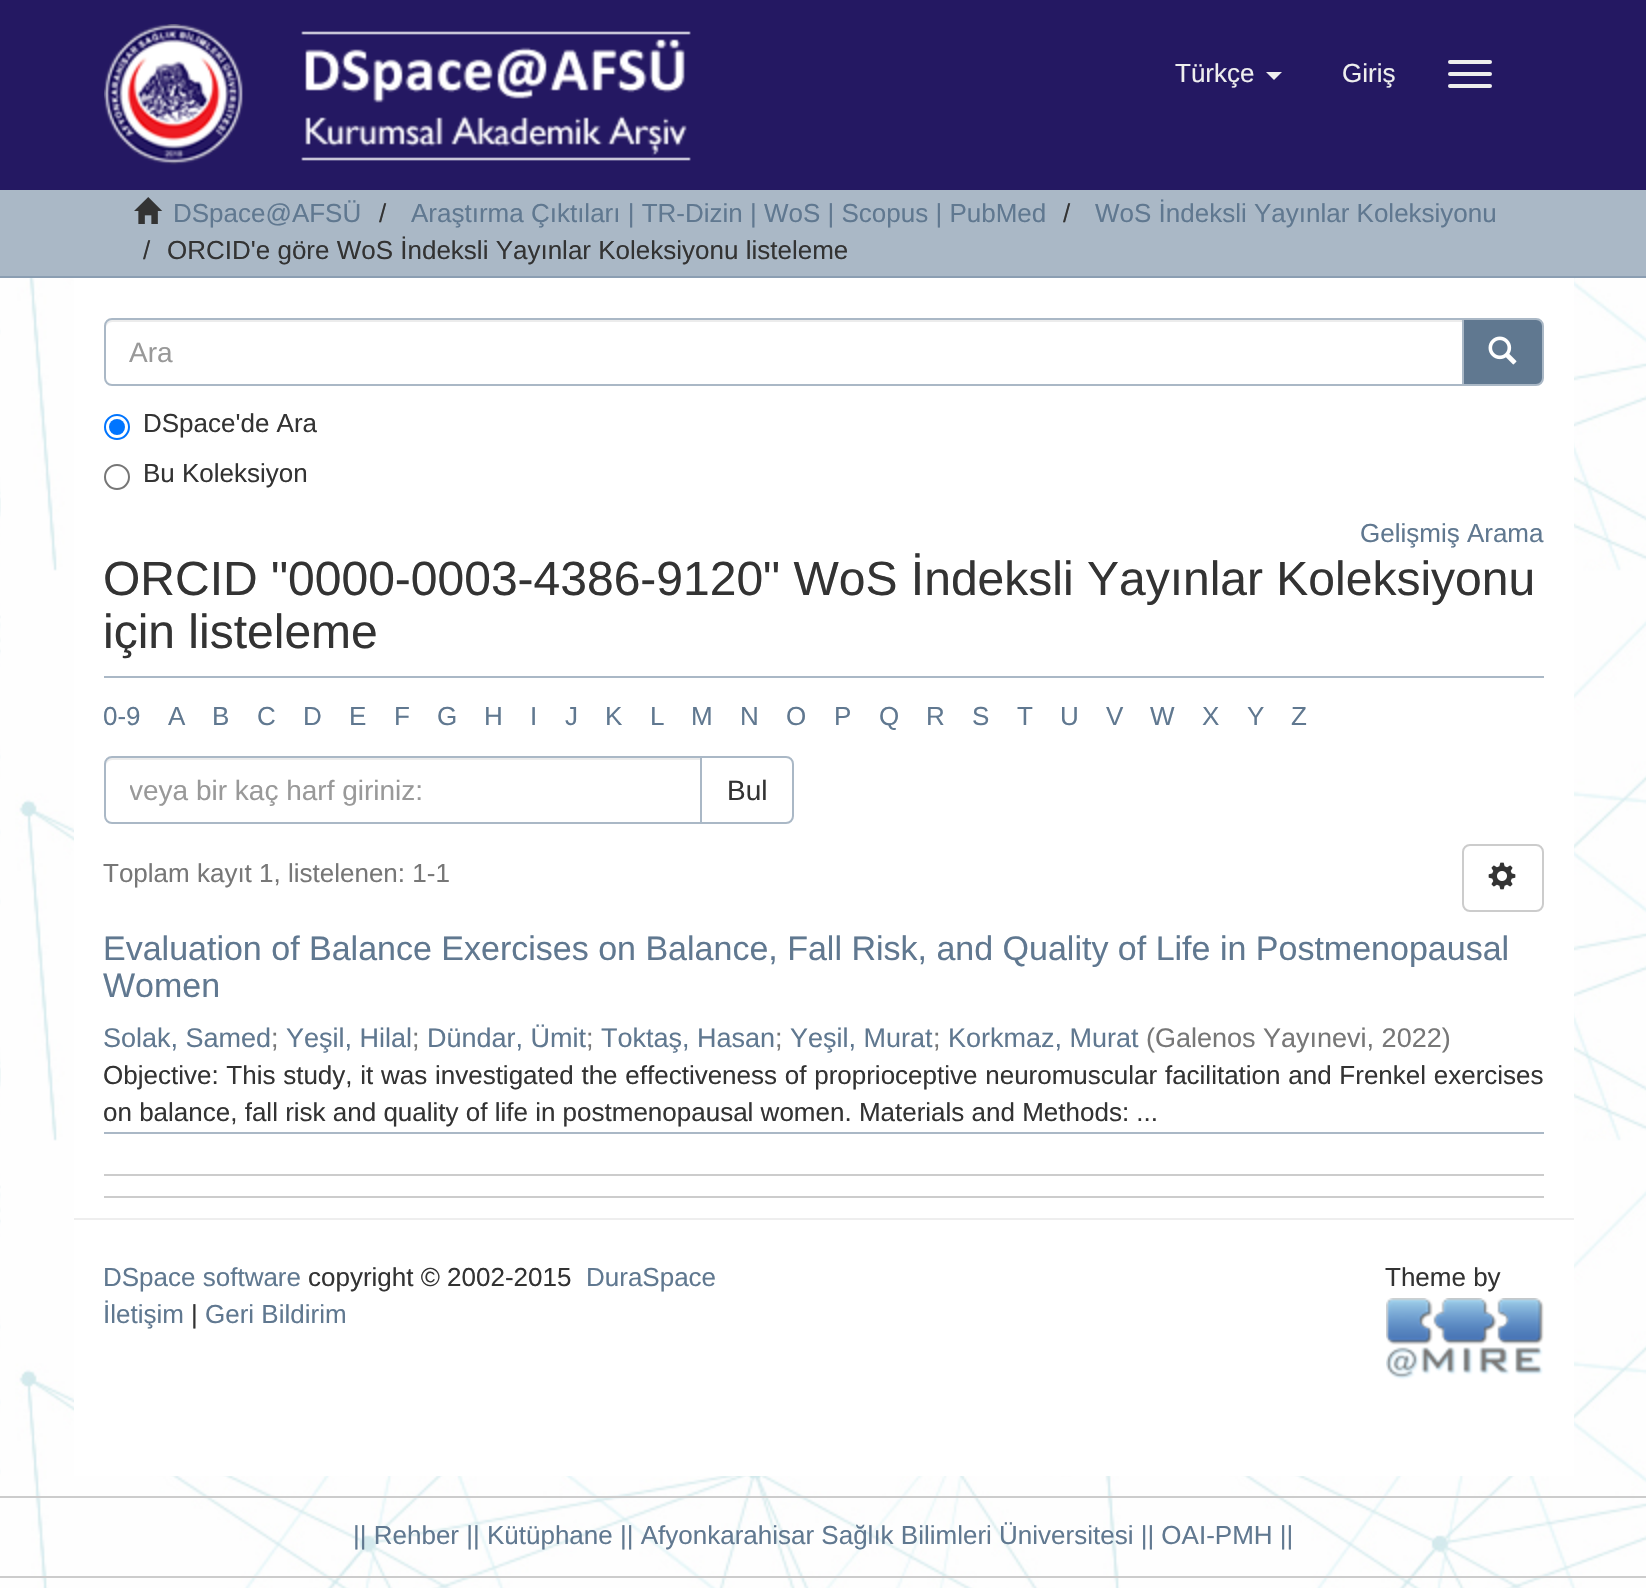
static SkFont makeFont(const char* family, int weight, float size, bool italic = false) {
  SkFontStyle style(weight, SkFontStyle::kNormal_Width,
    italic ? SkFontStyle::kItalic_Slant : SkFontStyle::kUpright_Slant);
  SkFont result(fontMgr->matchFamilyStyle(family, style), size);
  result.setSubpixel(true);
  return result;
}

static void text(SkCanvas* c, const char* s, float x, float y, const SkFont& font, SkColor color) {
  SkPaint ink(SkColor4f::FromColor(color));
  ink.setAntiAlias(true);
  c->drawString(s, x, y, font, ink);
}

static void spacedText(SkCanvas* c, const char* s, float x, float y, const SkFont& font, const SkPaint& ink, float letter, float word) {
  std::vector<SkGlyphID> glyphs(font.countText(s, strlen(s), SkTextEncoding::kUTF8));
  std::vector<float> xs(glyphs.size());
  font.textToGlyphs(s, strlen(s), SkTextEncoding::kUTF8, glyphs);
  font.getXPos(glyphs, xs, x);
  float extra = 0;
  for (size_t i = 0; i < glyphs.size(); i++) {
    xs[i] += extra;
    extra += letter + word * (glyphs[i] == font.unicharToGlyph(' '));
  }
  c->drawTextBlob(SkTextBlob::MakeFromPosHGlyphs(glyphs, xs, y, font), 0, 0, ink);
}

static void box(SkCanvas* c, float l, float t, float r, float b, SkColor color) {
  SkPaint ink(SkColor4f::FromColor(color));
  ink.setAntiAlias(true);
  c->drawRect(SkRect::MakeLTRB(l, t, r, b), ink);
}

static void roundBox(SkCanvas* c, float l, float t, float r, float b, float radius, SkColor color) {
  SkPaint ink(SkColor4f::FromColor(color));
  ink.setAntiAlias(true);
  c->drawRoundRect(SkRect::MakeLTRB(l, t, r, b), radius, radius, ink);
}

static void picture(SkCanvas* c, const char* path, float l, float t, float r, float b) {
  auto image = SkImages::DeferredFromEncodedData(SkData::MakeFromFileName(path));
  c->drawImageRect(image, SkRect::MakeLTRB(l, t, r, b), SkSamplingOptions());
}

void draw(SkCanvas* c) {
  SkPaint paint;
  paint.setAntiAlias(true);
  c->clear(0xffffffff);
  picture(c, "img_01.png", 0, 278, 1646, 1588);
  box(c, 0, 0, 1646, 190, 0xff241862);
  picture(c, "img_02.png", 104, 24, 691, 165);
  SkFont face1 = makeFont("Liberation Sans", 400, 26);
  text(c, "Türkçe", 1175, 82, face1, 0xffeeeeee);
  paint.setColor(0xffeeeeee);
  c->drawPath(SkPathBuilder().moveTo(1266, 72).lineTo(1282, 72).lineTo(1274, 80).close().detach(), paint);
  text(c, "Giriş", 1342, 82, face1, 0xffeeeeee);
  roundBox(c, 1448, 60, 1492, 64, 2, 0xffeeeeee);
  roundBox(c, 1448, 72, 1492, 76, 2, 0xffeeeeee);
  roundBox(c, 1448, 84, 1492, 88, 2, 0xffeeeeee);
  box(c, 0, 190, 1646, 276, 0xffaab8c6);
  box(c, 0, 276, 1646, 278, 0xff8b9eb2);
  picture(c, "img_03.png", 134, 197, 163, 224);
  text(c, "DSpace@AFSÜ", 173, 222, face1, 0xff607890);
  text(c, "/", 379, 222, face1, 0xff333333);
  text(c, "Araştırma Çıktıları | TR-Dizin | WoS | Scopus | PubMed", 411, 222, face1, 0xff607890);
  text(c, "/", 1063, 222, face1, 0xff333333);
  text(c, "WoS İndeksli Yayınlar Koleksiyonu", 1095, 222, face1, 0xff607890);
  text(c, "/", 143, 259, face1, 0xff333333);
  text(c, "ORCID'e göre WoS İndeksli Yayınlar Koleksiyonu listeleme", 167, 259, face1, 0xff333333);
  box(c, 74, 278, 1574, 1476, 0xffffffff);
  paint.setColor(0xff607890);
  c->drawPath(SkPathBuilder().moveTo(1463, 319).lineTo(1536, 319).cubicTo(1540, 319, 1543, 322, 1543, 326).lineTo(1543, 378).cubicTo(1543, 382, 1540, 385, 1536, 385).lineTo(1463, 385).close().detach(), paint);
  paint.setStyle(SkPaint::kStroke_Style);
  paint.setStrokeWidth(2);
  paint.setColor(0xffaab8c6);
  c->drawPath(SkPathBuilder().moveTo(1463, 319).lineTo(1536, 319).cubicTo(1540, 319, 1543, 322, 1543, 326).lineTo(1543, 378).cubicTo(1543, 382, 1540, 385, 1536, 385).lineTo(1463, 385).close().detach(), paint);
  paint.setStyle(SkPaint::kFill_Style);
  paint.setColor(0xffffffff);
  c->drawPath(SkPathBuilder().moveTo(112, 318).lineTo(1464, 318).lineTo(1464, 386).lineTo(112, 386).cubicTo(107.5f, 386, 104, 382.5f, 104, 378).lineTo(104, 326).cubicTo(104, 321.5f, 107.5f, 318, 112, 318).close().detach(), paint);
  paint.setColor(0xffececec);
  c->drawPath(SkPathBuilder().moveTo(112, 322).lineTo(1462, 322).lineTo(1462, 320).lineTo(112, 320).cubicTo(109, 320, 106, 323, 106, 326).lineTo(106, 328).cubicTo(106, 325, 109, 322, 112, 322).close().detach(), paint);
  paint.setStyle(SkPaint::kStroke_Style);
  paint.setColor(0xffaab8c6);
  c->drawPath(SkPathBuilder().moveTo(112, 319).lineTo(1463, 319).lineTo(1463, 385).lineTo(112, 385).cubicTo(108, 385, 105, 382, 105, 378).lineTo(105, 326).cubicTo(105, 322, 108, 319, 112, 319).close().detach(), paint);
  SkFont face2 = makeFont("Liberation Sans", 400, 28);
  text(c, "Ara", 129, 362, face2, 0xff999999);
  picture(c, "img_04.png", 1488, 336, 1517, 365);
  paint.setColor(0xff0075ff);
  c->drawCircle(117, 427, 12, paint);
  paint.setStyle(SkPaint::kFill_Style);
  c->drawCircle(117, 427, 8, paint);
  text(c, "DSpace'de Ara", 143, 432, face1, 0xff333333);
  paint.setStyle(SkPaint::kStroke_Style);
  paint.setColor(0xff767676);
  c->drawCircle(117, 477, 12, paint);
  text(c, "Bu Koleksiyon", 143, 482, face1, 0xff333333);
  text(c, "Gelişmiş Arama", 1360, 542, face1, 0xff607890);
  box(c, 104, 676, 1544, 678, 0xffaab8c6);
  SkFont face3 = makeFont("Liberation Sans", 400, 48);
  text(c, "ORCID \"0000-0003-4386-9120\" WoS İndeksli Yayınlar Koleksiyonu", 103, 595, face3, 0xff333333);
  text(c, "için listeleme", 103, 648, face3, 0xff333333);
  text(c, "0-9", 103, 725, face1, 0xff607890);
  text(c, "A", 168, 725, face1, 0xff607890);
  text(c, "B", 212, 725, face1, 0xff607890);
  text(c, "C", 257, 725, face1, 0xff607890);
  text(c, "D", 303, 725, face1, 0xff607890);
  text(c, "E", 349, 725, face1, 0xff607890);
  text(c, "F", 394, 725, face1, 0xff607890);
  text(c, "G", 437, 725, face1, 0xff607890);
  text(c, "H", 484, 725, face1, 0xff607890);
  text(c, "I", 530, 725, face1, 0xff607890);
  text(c, "J", 565, 725, face1, 0xff607890);
  text(c, "K", 605, 725, face1, 0xff607890);
  text(c, "L", 650, 725, face1, 0xff607890);
  text(c, "M", 691, 725, face1, 0xff607890);
  text(c, "N", 740, 725, face1, 0xff607890);
  text(c, "O", 786, 725, face1, 0xff607890);
  text(c, "P", 834, 725, face1, 0xff607890);
  text(c, "Q", 879, 725, face1, 0xff607890);
  text(c, "R", 926, 725, face1, 0xff607890);
  text(c, "S", 972, 725, face1, 0xff607890);
  text(c, "T", 1017, 725, face1, 0xff607890);
  text(c, "U", 1060, 725, face1, 0xff607890);
  text(c, "V", 1106, 725, face1, 0xff607890);
  text(c, "W", 1150, 725, face1, 0xff607890);
  text(c, "X", 1202, 725, face1, 0xff607890);
  text(c, "Y", 1247, 725, face1, 0xff607890);
  text(c, "Z", 1291, 725, face1, 0xff607890);
  paint.setColor(0xffaab8c6);
  c->drawPath(SkPathBuilder().moveTo(701, 757).lineTo(786, 757).cubicTo(790, 757, 793, 760, 793, 764).lineTo(793, 816).cubicTo(793, 820, 790, 823, 786, 823).lineTo(701, 823).close().detach(), paint);
  paint.setStyle(SkPaint::kFill_Style);
  paint.setColor(0xffffffff);
  c->drawPath(SkPathBuilder().moveTo(112, 756).lineTo(702, 756).lineTo(702, 824).lineTo(112, 824).cubicTo(107.5f, 824, 104, 820.5f, 104, 816).lineTo(104, 764).cubicTo(104, 759.5f, 107.5f, 756, 112, 756).close().detach(), paint);
  paint.setColor(0xffececec);
  c->drawPath(SkPathBuilder().moveTo(112, 760).lineTo(700, 760).lineTo(700, 758).lineTo(112, 758).cubicTo(107, 758, 106, 762, 106, 766).cubicTo(106, 763, 109, 760, 112, 760).close().detach(), paint);
  paint.setStyle(SkPaint::kStroke_Style);
  paint.setColor(0xffaab8c6);
  c->drawPath(SkPathBuilder().moveTo(112, 757).lineTo(701, 757).lineTo(701, 823).lineTo(112, 823).cubicTo(108, 823, 105, 820, 105, 816).lineTo(105, 764).cubicTo(105, 760, 108, 757, 112, 757).close().detach(), paint);
  c->save();
  c->clipRect(SkRect::MakeLTRB(130, 774, 676, 806));
  text(c, "veya bir kaç harf giriniz:", 129, 800, face2, 0xff999999);
  c->restore();
  text(c, "Bul", 727, 800, face2, 0xff333333);
  text(c, "Toplam kayıt 1, listelenen: 1-1", 103, 882, face1, 0xff777777);
  paint.setColor(0xffcccccc);
  c->drawRoundRect(SkRect::MakeLTRB(1463, 845, 1543, 911), 7, 7, paint);
  picture(c, "img_05.png", 1488, 862, 1516, 890);
  SkFont face4 = makeFont("Liberation Sans", 400, 34);
  text(c, "Evaluation of Balance Exercises on Balance, Fall Risk, and Quality of Life in Postmenopausal", 103, 960, face4, 0xff607890);
  text(c, "Women", 103, 997, face4, 0xff607890);
  SkFont face5 = makeFont("Liberation Sans", 400, 27);
  text(c, "Solak, Samed", 103, 1047, face5, 0xff607890);
  text(c, ";", 271, 1047, face5, 0xff777777);
  text(c, "Yeşil, Hilal", 286, 1047, face5, 0xff607890);
  text(c, ";", 412, 1047, face5, 0xff777777);
  text(c, "Dündar, Ümit", 427, 1047, face5, 0xff607890);
  text(c, ";", 586, 1047, face5, 0xff777777);
  text(c, "Toktaş, Hasan", 601, 1047, face5, 0xff607890);
  text(c, ";", 775, 1047, face5, 0xff777777);
  text(c, "Yeşil, Murat", 790, 1047, face5, 0xff607890);
  text(c, ";", 933, 1047, face5, 0xff777777);
  text(c, "Korkmaz, Murat", 948, 1047, face5, 0xff607890);
  text(c, "(Galenos Yayınevi, 2022)", 1146, 1047, face5, 0xff777777);
  box(c, 104, 1132, 1544, 1134, 0xffaab8c6);
  paint.setStyle(SkPaint::kFill_Style);
  paint.setColor(0xff333333);
  spacedText(c, "Objective: This study, it was investigated the effectiveness of proprioceptive neuromuscular facilitation and Frenkel exercises", 103, 1084, face1, paint, 0, 0.5f);
  text(c, "on balance, fall risk and quality of life in postmenopausal women. Materials and Methods: ...", 103, 1121, face1, 0xff333333);
  box(c, 104, 1174, 1544, 1176, 0xffcccccc);
  box(c, 104, 1196, 1544, 1198, 0xffcccccc);
  box(c, 74, 1218, 1574, 1220, 0xffeeeeee);
  text(c, "DSpace software", 103, 1286, face1, 0xff607890);
  text(c, "copyright © 2002-2015", 308, 1286, face1, 0xff333333);
  text(c, "DuraSpace", 586, 1286, face1, 0xff607890);
  text(c, "İletişim", 103, 1323, face1, 0xff607890);
  text(c, "|", 191, 1323, face1, 0xff333333);
  text(c, "Geri Bildirim", 205, 1323, face1, 0xff607890);
  text(c, "Theme by", 1385, 1286, face1, 0xff333333);
  picture(c, "img_06.png", 1386, 1298, 1544, 1380);
  box(c, 0, 1496, 1646, 1498, 0xffcccccc);
  text(c, "|| Rehber || Kütüphane || Afyonkarahisar Sağlık Bilimleri Üniversitesi || OAI-PMH ||", 353, 1544, face1, 0xff607890);
  box(c, 0, 1576, 1646, 1578, 0xffcccccc);
}
